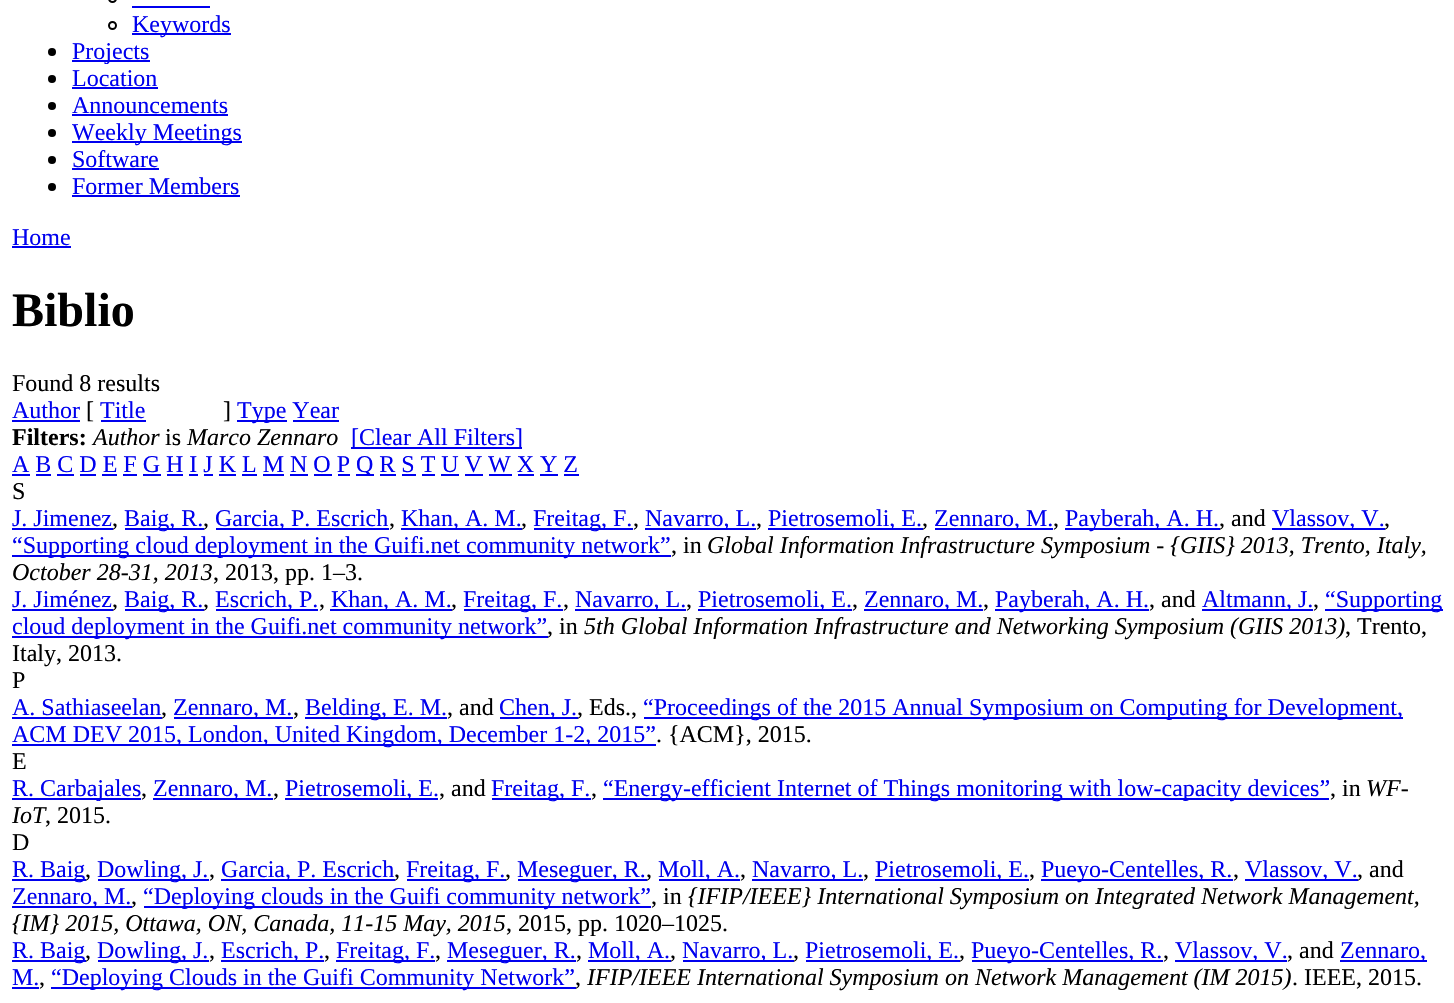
static SkFont makeFont(const char* family, int weight, float size, bool italic = false) {
  SkFontStyle style(weight, SkFontStyle::kNormal_Width,
    italic ? SkFontStyle::kItalic_Slant : SkFontStyle::kUpright_Slant);
  SkFont result(fontMgr->matchFamilyStyle(family, style), size);
  result.setSubpixel(true);
  return result;
}

static void text(SkCanvas* c, const char* s, float x, float y, const SkFont& font, SkColor color) {
  SkPaint ink(SkColor4f::FromColor(color));
  ink.setAntiAlias(true);
  c->drawString(s, x, y, font, ink);
}

static void box(SkCanvas* c, float l, float t, float r, float b, SkColor color) {
  SkPaint ink(SkColor4f::FromColor(color));
  ink.setAntiAlias(true);
  c->drawRect(SkRect::MakeLTRB(l, t, r, b), ink);
}

void draw(SkCanvas* c) {
  SkPaint paint;
  paint.setAntiAlias(true);
  c->clear(0xffffffff);
  paint.setStyle(SkPaint::kStroke_Style);
  paint.setStrokeWidth(2);
  paint.setColor(0xff000000);
  c->drawCircle(112.5f, -1.5f, 3.5f, paint);
  box(c, 132, 6, 210, 8, 0xff0000ee);
  c->drawCircle(112.5f, 25.5f, 3.5f, paint);
  box(c, 132, 33, 231, 35, 0xff0000ee);
  SkFont face1 = makeFont("Liberation Serif", 400, 24);
  text(c, "Keywords", 132, 32, face1, 0xff0000ee);
  paint.setStyle(SkPaint::kFill_Style);
  c->drawCircle(52, 52, 4, paint);
  box(c, 72, 60, 150, 62, 0xff0000ee);
  text(c, "Projects", 72, 59, face1, 0xff0000ee);
  c->drawCircle(52, 79, 4, paint);
  text(c, "Location", 72, 86, face1, 0xff0000ee);
  box(c, 72, 87, 158, 89, 0xff0000ee);
  c->drawCircle(52, 106, 4, paint);
  text(c, "Announcements", 72, 113, face1, 0xff0000ee);
  box(c, 72, 114, 228, 116, 0xff0000ee);
  c->drawCircle(52, 133, 4, paint);
  box(c, 72, 141, 242, 143, 0xff0000ee);
  text(c, "Weekly Meetings", 72, 140, face1, 0xff0000ee);
  c->drawCircle(52, 160, 4, paint);
  text(c, "Software", 72, 167, face1, 0xff0000ee);
  box(c, 72, 168, 159, 170, 0xff0000ee);
  c->drawCircle(52, 187, 4, paint);
  text(c, "Former Members", 72, 194, face1, 0xff0000ee);
  box(c, 72, 195, 240, 197, 0xff0000ee);
  text(c, "Home", 12, 245, face1, 0xff0000ee);
  box(c, 12, 246, 71, 248, 0xff0000ee);
  SkFont face2 = makeFont("Liberation Serif", 700, 48);
  text(c, "Biblio", 12, 326, face2, 0xff000000);
  text(c, "Found 8 results", 12, 391, face1, 0xff000000);
  text(c, "Author", 12, 418, face1, 0xff0000ee);
  box(c, 12, 420, 80, 422, 0xff0000ee);
  text(c, "[", 86, 418, face1, 0xff000000);
  text(c, "Title", 100, 418, face1, 0xff0000ee);
  box(c, 101, 420, 146, 422, 0xff0000ee);
  text(c, "]", 223, 418, face1, 0xff000000);
  box(c, 237, 420, 287, 422, 0xff0000ee);
  text(c, "Type Year", 237, 418, face1, 0xff0000ee);
  box(c, 293, 420, 339, 422, 0xff0000ee);
  SkFont face3 = makeFont("Liberation Serif", 700, 24);
  text(c, "Filters:", 12, 445, face3, 0xff000000);
  SkFont face4 = makeFont("Liberation Serif", 400, 24, true);
  text(c, "Author", 93, 445, face4, 0xff000000);
  text(c, "is", 165, 445, face1, 0xff000000);
  text(c, "Marco Zennaro", 187, 445, face4, 0xff000000);
  box(c, 351, 447, 522, 449, 0xff0000ee);
  text(c, "[Clear All Filters]", 351, 445, face1, 0xff0000ee);
  text(c, "A B C D E F G H I J K L M N O P", 12, 472, face1, 0xff0000ee);
  box(c, 12, 474, 30, 476, 0xff0000ee);
  box(c, 356, 474, 374, 476, 0xff0000ee);
  text(c, "Q R S T U V W X Y Z", 356, 472, face1, 0xff0000ee);
  box(c, 36, 474, 51, 476, 0xff0000ee);
  box(c, 57, 474, 74, 476, 0xff0000ee);
  box(c, 80, 474, 96, 476, 0xff0000ee);
  box(c, 102, 474, 117, 476, 0xff0000ee);
  box(c, 123, 474, 137, 476, 0xff0000ee);
  box(c, 143, 474, 161, 476, 0xff0000ee);
  box(c, 167, 474, 183, 476, 0xff0000ee);
  box(c, 189, 474, 198, 476, 0xff0000ee);
  box(c, 204, 474, 213, 476, 0xff0000ee);
  box(c, 219, 474, 236, 476, 0xff0000ee);
  box(c, 242, 474, 257, 476, 0xff0000ee);
  box(c, 263, 474, 284, 476, 0xff0000ee);
  box(c, 290, 474, 308, 476, 0xff0000ee);
  box(c, 314, 474, 332, 476, 0xff0000ee);
  box(c, 338, 474, 350, 476, 0xff0000ee);
  box(c, 380, 474, 396, 476, 0xff0000ee);
  box(c, 402, 474, 416, 476, 0xff0000ee);
  box(c, 422, 474, 435, 476, 0xff0000ee);
  box(c, 441, 474, 459, 476, 0xff0000ee);
  box(c, 465, 474, 483, 476, 0xff0000ee);
  box(c, 489, 474, 512, 476, 0xff0000ee);
  box(c, 518, 474, 534, 476, 0xff0000ee);
  box(c, 540, 474, 558, 476, 0xff0000ee);
  box(c, 564, 474, 579, 476, 0xff0000ee);
  text(c, "S", 12, 499, face1, 0xff000000);
  text(c, "J. Jimenez", 12, 526, face1, 0xff0000ee);
  box(c, 12, 528, 113, 530, 0xff0000ee);
  text(c, ",", 112, 526, face1, 0xff000000);
  box(c, 125, 528, 204, 530, 0xff0000ee);
  text(c, "Baig, R.", 124, 526, face1, 0xff0000ee);
  text(c, ",", 203, 526, face1, 0xff000000);
  box(c, 216, 528, 389, 530, 0xff0000ee);
  text(c, "Garcia, P. Escrich", 215, 526, face1, 0xff0000ee);
  text(c, ",", 389, 526, face1, 0xff000000);
  box(c, 401, 528, 522, 530, 0xff0000ee);
  text(c, "Khan, A. M.", 401, 526, face1, 0xff0000ee);
  text(c, ",", 521, 526, face1, 0xff000000);
  box(c, 534, 528, 633, 530, 0xff0000ee);
  text(c, "Freitag, F.", 533, 526, face1, 0xff0000ee);
  text(c, ",", 633, 526, face1, 0xff000000);
  box(c, 645, 528, 756, 530, 0xff0000ee);
  text(c, "Navarro, L.", 645, 526, face1, 0xff0000ee);
  text(c, ",", 756, 526, face1, 0xff000000);
  box(c, 768, 528, 923, 530, 0xff0000ee);
  text(c, "Pietrosemoli, E.", 768, 526, face1, 0xff0000ee);
  text(c, ",", 922, 526, face1, 0xff000000);
  box(c, 935, 528, 1053, 530, 0xff0000ee);
  text(c, "Zennaro, M.", 934, 526, face1, 0xff0000ee);
  text(c, ",", 1053, 526, face1, 0xff000000);
  box(c, 1065, 528, 1220, 530, 0xff0000ee);
  text(c, "Payberah, A. H.", 1065, 526, face1, 0xff0000ee);
  text(c, ", and", 1219, 526, face1, 0xff000000);
  box(c, 1272, 528, 1385, 530, 0xff0000ee);
  text(c, "Vlassov, V.", 1272, 526, face1, 0xff0000ee);
  text(c, ",", 1384, 526, face1, 0xff000000);
  box(c, 12, 555, 671, 557, 0xff0000ee);
  text(c, "“Supporting cloud deployment in the Guifi.net community network”", 12, 553, face1, 0xff0000ee);
  text(c, ", in", 671, 553, face1, 0xff000000);
  text(c, "Global Information Infrastructure Symposium - {GIIS} 2013, Trento, Italy,", 707, 553, face4, 0xff000000);
  text(c, "October 28-31, 2013", 12, 580, face4, 0xff000000);
  text(c, ", 2013, pp. 1–3.", 213, 580, face1, 0xff000000);
  text(c, "J. Jiménez", 12, 607, face1, 0xff0000ee);
  box(c, 12, 609, 113, 611, 0xff0000ee);
  text(c, ",", 112, 607, face1, 0xff000000);
  box(c, 125, 609, 204, 611, 0xff0000ee);
  text(c, "Baig, R.", 124, 607, face1, 0xff0000ee);
  text(c, ",", 203, 607, face1, 0xff000000);
  box(c, 216, 609, 318, 611, 0xff0000ee);
  text(c, "Escrich, P.", 215, 607, face1, 0xff0000ee);
  text(c, ",", 319, 607, face1, 0xff000000);
  box(c, 330, 609, 452, 611, 0xff0000ee);
  text(c, "Khan, A. M.", 331, 607, face1, 0xff0000ee);
  text(c, ",", 451, 607, face1, 0xff000000);
  box(c, 464, 609, 563, 611, 0xff0000ee);
  text(c, "Freitag, F.", 463, 607, face1, 0xff0000ee);
  text(c, ",", 563, 607, face1, 0xff000000);
  box(c, 575, 609, 686, 611, 0xff0000ee);
  text(c, "Navarro, L.", 575, 607, face1, 0xff0000ee);
  text(c, ",", 686, 607, face1, 0xff000000);
  box(c, 698, 609, 852, 611, 0xff0000ee);
  text(c, "Pietrosemoli, E.", 698, 607, face1, 0xff0000ee);
  text(c, ",", 852, 607, face1, 0xff000000);
  box(c, 864, 609, 983, 611, 0xff0000ee);
  text(c, "Zennaro, M.", 864, 607, face1, 0xff0000ee);
  text(c, ",", 983, 607, face1, 0xff000000);
  box(c, 995, 609, 1149, 611, 0xff0000ee);
  text(c, "Payberah, A. H.", 995, 607, face1, 0xff0000ee);
  text(c, ", and", 1149, 607, face1, 0xff000000);
  box(c, 1202, 609, 1313, 611, 0xff0000ee);
  text(c, "Altmann, J.", 1202, 607, face1, 0xff0000ee);
  text(c, ",", 1313, 607, face1, 0xff000000);
  box(c, 1325, 609, 1443, 611, 0xff0000ee);
  text(c, "“Supporting", 1325, 607, face1, 0xff0000ee);
  box(c, 12, 636, 548, 638, 0xff0000ee);
  text(c, "cloud deployment in the Guifi.net community network”", 12, 634, face1, 0xff0000ee);
  text(c, ", in", 547, 634, face1, 0xff000000);
  text(c, "5th Global Information Infrastructure and Networking Symposium (GIIS 2013)", 584, 634, face4, 0xff000000);
  text(c, ", Trento,", 1345, 634, face1, 0xff000000);
  text(c, "Italy, 2013.", 12, 661, face1, 0xff000000);
  text(c, "P", 12, 688, face1, 0xff000000);
  text(c, "A. Sathiaseelan", 12, 715, face1, 0xff0000ee);
  text(c, ",", 161, 715, face1, 0xff000000);
  box(c, 12, 717, 162, 719, 0xff0000ee);
  box(c, 174, 717, 293, 719, 0xff0000ee);
  text(c, "Zennaro, M.", 173, 715, face1, 0xff0000ee);
  text(c, ",", 293, 715, face1, 0xff000000);
  box(c, 305, 717, 447, 719, 0xff0000ee);
  text(c, "Belding, E. M.", 305, 715, face1, 0xff0000ee);
  text(c, ", and", 447, 715, face1, 0xff000000);
  box(c, 500, 717, 578, 719, 0xff0000ee);
  text(c, "Chen, J.", 499, 715, face1, 0xff0000ee);
  text(c, ", Eds.,", 577, 715, face1, 0xff000000);
  box(c, 644, 717, 1403, 719, 0xff0000ee);
  text(c, "“Proceedings of the 2015 Annual Symposium on Computing for Development,", 643, 715, face1, 0xff0000ee);
  box(c, 12, 744, 656, 746, 0xff0000ee);
  text(c, "ACM DEV 2015, London, United Kingdom, December 1-2, 2015”", 12, 742, face1, 0xff0000ee);
  text(c, ". {ACM}, 2015.", 656, 742, face1, 0xff000000);
  text(c, "E", 12, 769, face1, 0xff000000);
  box(c, 12, 798, 141, 800, 0xff0000ee);
  text(c, "R. Carbajales", 12, 796, face1, 0xff0000ee);
  text(c, ",", 141, 796, face1, 0xff000000);
  box(c, 153, 798, 273, 800, 0xff0000ee);
  text(c, "Zennaro, M.", 153, 796, face1, 0xff0000ee);
  text(c, ",", 273, 796, face1, 0xff000000);
  box(c, 285, 798, 438, 800, 0xff0000ee);
  text(c, "Pietrosemoli, E.", 285, 796, face1, 0xff0000ee);
  text(c, ", and", 439, 796, face1, 0xff000000);
  box(c, 492, 798, 591, 800, 0xff0000ee);
  text(c, "Freitag, F.", 491, 796, face1, 0xff0000ee);
  text(c, ",", 591, 796, face1, 0xff000000);
  box(c, 603, 798, 1329, 800, 0xff0000ee);
  text(c, "“Energy-efficient Internet of Things monitoring with low-capacity devices”", 603, 796, face1, 0xff0000ee);
  text(c, ", in", 1330, 796, face1, 0xff000000);
  text(c, "WF-", 1366, 796, face4, 0xff000000);
  text(c, "IoT", 12, 823, face4, 0xff000000);
  text(c, ", 2015.", 45, 823, face1, 0xff000000);
  text(c, "D", 12, 850, face1, 0xff000000);
  box(c, 12, 879, 86, 881, 0xff0000ee);
  text(c, "R. Baig", 12, 877, face1, 0xff0000ee);
  text(c, ",", 85, 877, face1, 0xff000000);
  box(c, 98, 879, 209, 881, 0xff0000ee);
  text(c, "Dowling, J.", 97, 877, face1, 0xff0000ee);
  text(c, ",", 209, 877, face1, 0xff000000);
  box(c, 221, 879, 395, 881, 0xff0000ee);
  text(c, "Garcia, P. Escrich", 221, 877, face1, 0xff0000ee);
  text(c, ",", 394, 877, face1, 0xff000000);
  box(c, 407, 879, 506, 881, 0xff0000ee);
  text(c, "Freitag, F.", 406, 877, face1, 0xff0000ee);
  text(c, ",", 505, 877, face1, 0xff000000);
  box(c, 518, 879, 647, 881, 0xff0000ee);
  text(c, "Meseguer, R.", 517, 877, face1, 0xff0000ee);
  text(c, ",", 646, 877, face1, 0xff000000);
  box(c, 659, 879, 740, 881, 0xff0000ee);
  text(c, "Moll, A.", 658, 877, face1, 0xff0000ee);
  text(c, ",", 740, 877, face1, 0xff000000);
  box(c, 752, 879, 863, 881, 0xff0000ee);
  text(c, "Navarro, L.", 752, 877, face1, 0xff0000ee);
  text(c, ",", 863, 877, face1, 0xff000000);
  box(c, 875, 879, 1029, 881, 0xff0000ee);
  text(c, "Pietrosemoli, E.", 875, 877, face1, 0xff0000ee);
  text(c, ",", 1029, 877, face1, 0xff000000);
  box(c, 1041, 879, 1233, 881, 0xff0000ee);
  text(c, "Pueyo-Centelles, R.", 1041, 877, face1, 0xff0000ee);
  text(c, ",", 1233, 877, face1, 0xff000000);
  box(c, 1245, 879, 1358, 881, 0xff0000ee);
  text(c, "Vlassov, V.", 1245, 877, face1, 0xff0000ee);
  text(c, ", and", 1357, 877, face1, 0xff000000);
  box(c, 12, 906, 132, 908, 0xff0000ee);
  text(c, "Zennaro, M.", 12, 904, face1, 0xff0000ee);
  text(c, ",", 131, 904, face1, 0xff000000);
  box(c, 144, 906, 651, 908, 0xff0000ee);
  text(c, "“Deploying clouds in the Guifi community network”", 143, 904, face1, 0xff0000ee);
  text(c, ", in", 651, 904, face1, 0xff000000);
  text(c, "{IFIP/IEEE} International Symposium on Integrated Network Management,", 688, 904, face4, 0xff000000);
  text(c, "{IM} 2015, Ottawa, ON, Canada, 11-15 May, 2015", 12, 931, face4, 0xff000000);
  text(c, ", 2015, pp. 1020–1025.", 506, 931, face1, 0xff000000);
  box(c, 12, 960, 86, 962, 0xff0000ee);
  text(c, "R. Baig", 12, 958, face1, 0xff0000ee);
  text(c, ",", 85, 958, face1, 0xff000000);
  box(c, 98, 960, 209, 962, 0xff0000ee);
  text(c, "Dowling, J.", 97, 958, face1, 0xff0000ee);
  text(c, ",", 209, 958, face1, 0xff000000);
  box(c, 221, 960, 324, 962, 0xff0000ee);
  text(c, "Escrich, P.", 221, 958, face1, 0xff0000ee);
  text(c, ",", 324, 958, face1, 0xff000000);
  box(c, 336, 960, 435, 962, 0xff0000ee);
  text(c, "Freitag, F.", 336, 958, face1, 0xff0000ee);
  text(c, ",", 435, 958, face1, 0xff000000);
  box(c, 447, 960, 576, 962, 0xff0000ee);
  text(c, "Meseguer, R.", 447, 958, face1, 0xff0000ee);
  text(c, ",", 576, 958, face1, 0xff000000);
  box(c, 588, 960, 671, 962, 0xff0000ee);
  text(c, "Moll, A.", 588, 958, face1, 0xff0000ee);
  text(c, ",", 670, 958, face1, 0xff000000);
  box(c, 683, 960, 794, 962, 0xff0000ee);
  text(c, "Navarro, L.", 682, 958, face1, 0xff0000ee);
  text(c, ",", 793, 958, face1, 0xff000000);
  box(c, 806, 960, 960, 962, 0xff0000ee);
  text(c, "Pietrosemoli, E.", 805, 958, face1, 0xff0000ee);
  text(c, ",", 959, 958, face1, 0xff000000);
  box(c, 972, 960, 1163, 962, 0xff0000ee);
  text(c, "Pueyo-Centelles, R.", 971, 958, face1, 0xff0000ee);
  text(c, ",", 1163, 958, face1, 0xff000000);
  box(c, 1175, 960, 1287, 962, 0xff0000ee);
  text(c, "Vlassov, V.", 1175, 958, face1, 0xff0000ee);
  text(c, ", and", 1287, 958, face1, 0xff000000);
  box(c, 1340, 960, 1427, 962, 0xff0000ee);
  text(c, "Zennaro,", 1340, 958, face1, 0xff0000ee);
  text(c, "M.", 12, 985, face1, 0xff0000ee);
  box(c, 12, 987, 39, 989, 0xff0000ee);
  text(c, ",", 39, 985, face1, 0xff000000);
  box(c, 51, 987, 564, 989, 0xff0000ee);
  text(c, "“Deploying Clouds in the Guifi Community Network”", 51, 985, face1, 0xff0000ee);
  box(c, 564, 987, 576, 989, 0xff0000ee);
  text(c, ",", 575, 985, face1, 0xff000000);
  text(c, "IFIP/IEEE International Symposium on Network Management (IM 2015)", 587, 985, face4, 0xff000000);
  text(c, ". IEEE, 2015.", 1292, 985, face1, 0xff000000);
}
